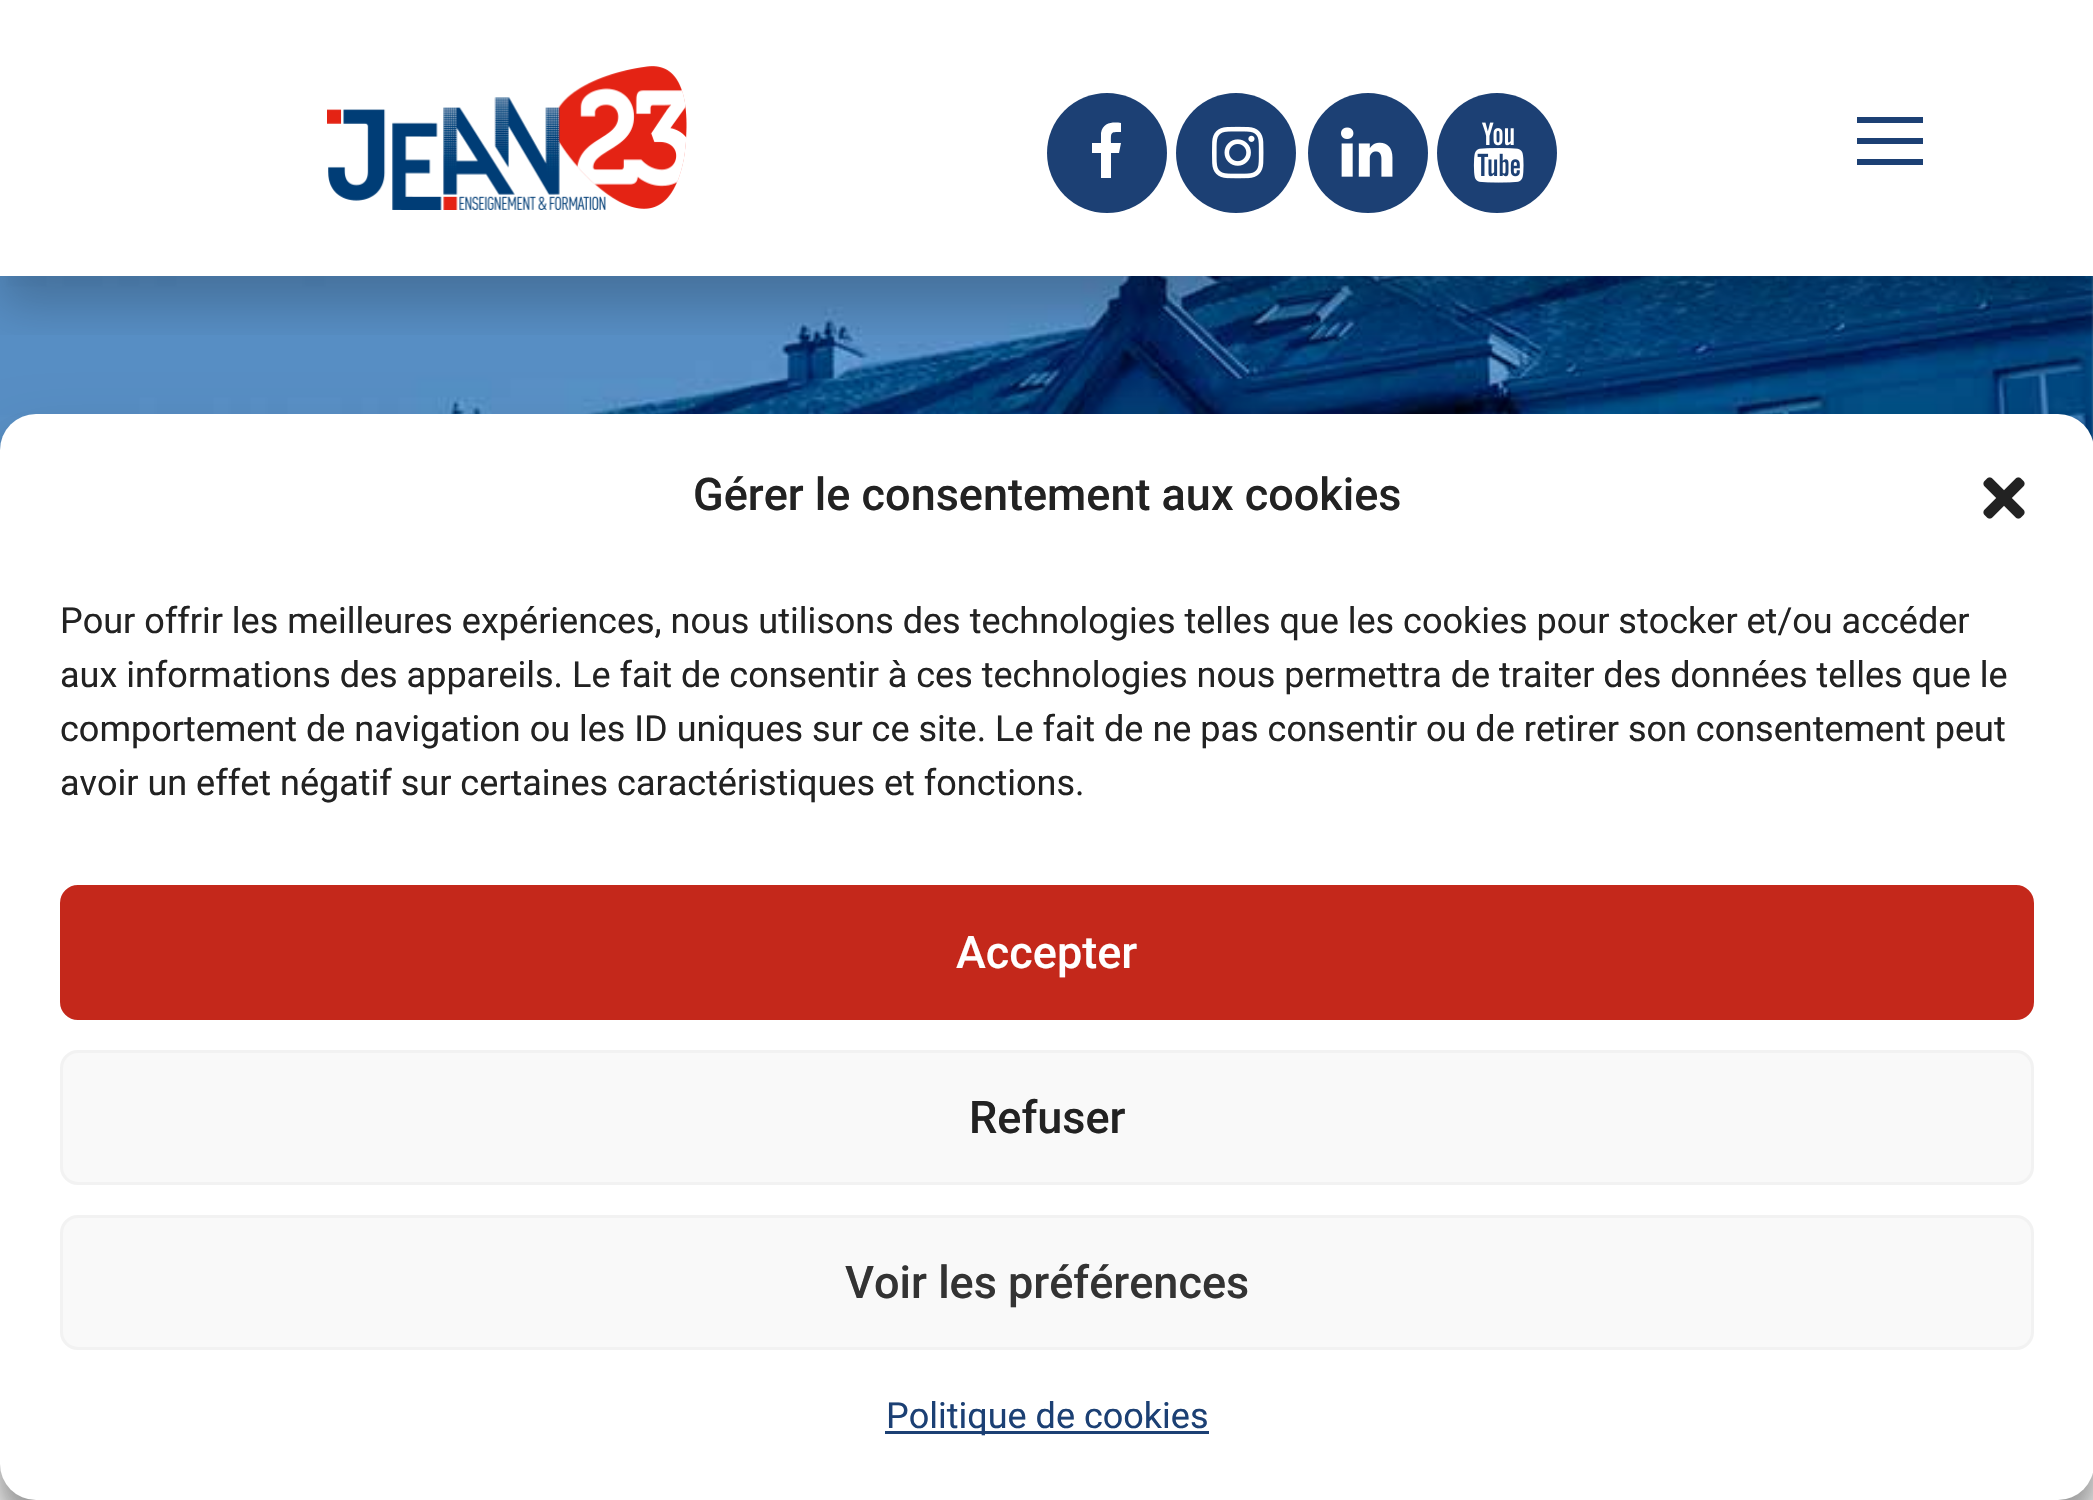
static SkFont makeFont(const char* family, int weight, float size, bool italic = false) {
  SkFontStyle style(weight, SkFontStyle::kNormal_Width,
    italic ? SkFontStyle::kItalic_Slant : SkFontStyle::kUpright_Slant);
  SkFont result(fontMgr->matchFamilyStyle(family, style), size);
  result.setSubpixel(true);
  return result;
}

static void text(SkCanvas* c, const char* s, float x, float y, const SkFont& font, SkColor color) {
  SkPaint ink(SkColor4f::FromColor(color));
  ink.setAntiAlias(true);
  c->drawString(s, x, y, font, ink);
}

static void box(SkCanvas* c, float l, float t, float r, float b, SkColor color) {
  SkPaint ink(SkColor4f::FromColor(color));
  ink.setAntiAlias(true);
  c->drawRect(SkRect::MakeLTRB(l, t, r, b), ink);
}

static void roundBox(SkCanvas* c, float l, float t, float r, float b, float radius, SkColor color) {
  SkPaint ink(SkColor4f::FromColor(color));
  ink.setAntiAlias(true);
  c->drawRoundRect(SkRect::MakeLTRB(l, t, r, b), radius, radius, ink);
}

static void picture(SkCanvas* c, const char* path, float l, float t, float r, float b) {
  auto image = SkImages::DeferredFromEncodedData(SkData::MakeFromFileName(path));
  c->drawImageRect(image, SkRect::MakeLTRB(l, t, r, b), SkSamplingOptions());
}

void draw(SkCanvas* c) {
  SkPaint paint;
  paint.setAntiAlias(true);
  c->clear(0xffffffff);
  box(c, 0, 276, 2093, 1500, 0xffeeeeee);
  picture(c, "img_05.png", 0, 276, 2093, 450);
  c->save();
  c->clipRect(SkRect::MakeLTRB(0, 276, 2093, 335));
  paint.setColor(0x33000000);
  paint.setMaskFilter(SkMaskFilter::MakeBlur(kNormal_SkBlurStyle, 22.5f));
  c->drawRect(SkRect::MakeLTRB(0, 30, 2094, 306), paint);
  paint.setMaskFilter(nullptr);
  c->restore();
  picture(c, "img_01.png", 327, 66, 687, 210);
  paint.setColor(0xff1c4074);
  c->drawCircle(1107, 153, 60, paint);
  paint.setColor(0xffffffff);
  c->drawPath(SkPathBuilder().moveTo(1121, 123).lineTo(1121, 132).cubicTo(1110, 132, 1111, 132, 1111, 143).lineTo(1121, 143).lineTo(1119, 153).lineTo(1111, 153).lineTo(1111, 178).lineTo(1101, 178).lineTo(1101, 153).lineTo(1092, 153).lineTo(1092, 143).lineTo(1101, 143).lineTo(1101, 133).cubicTo(1103, 122, 1113, 122, 1121, 123).close().detach(), paint);
  paint.setColor(0xff1c4074);
  c->drawCircle(1236, 153, 60, paint);
  picture(c, "img_02.png", 1212, 126, 1264, 179);
  c->drawCircle(1368, 153, 60, paint);
  picture(c, "img_03.png", 1341, 127, 1393, 177);
  c->drawCircle(1497, 153, 60, paint);
  picture(c, "img_04.png", 1473, 122, 1524, 183);
  box(c, 1857, 117, 1923, 123, 0xff1c4074);
  box(c, 1857, 159, 1923, 165, 0xff1c4074);
  box(c, 1857, 138, 1923, 144, 0xff1c4074);
  paint.setColor(0x3b000000);
  paint.setMaskFilter(SkMaskFilter::MakeBlur(kNormal_SkBlurStyle, 9));
  c->drawRoundRect(SkRect::MakeLTRB(0, 432, 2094, 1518), 36, 36, paint);
  paint.setMaskFilter(nullptr);
  paint.setColor(0x30000000);
  paint.setMaskFilter(SkMaskFilter::MakeBlur(kNormal_SkBlurStyle, 30));
  c->drawRoundRect(SkRect::MakeLTRB(0, 444, 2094, 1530), 36, 36, paint);
  paint.setMaskFilter(nullptr);
  roundBox(c, 0, 414, 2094, 1500, 36, 0xffffffff);
  SkFont face1 = makeFont("Roboto", 500, 45);
  text(c, "Gérer le consentement aux cookies", 693, 510, face1, 0xff222222);
  picture(c, "img_06.png", 1983, 477, 2025, 519);
  SkFont face2 = makeFont("Roboto", 400, 36);
  text(c, "Pour offrir les meilleures expériences, nous utilisons des technologies telles que les cookies pour stocker et/ou accéder", 60, 633, face2, 0xff222222);
  text(c, "aux informations des appareils. Le fait de consentir à ces technologies nous permettra de traiter des données telles que le", 60, 687, face2, 0xff222222);
  text(c, "comportement de navigation ou les ID uniques sur ce site. Le fait de ne pas consentir ou de retirer son consentement peut", 60, 741, face2, 0xff222222);
  text(c, "avoir un effet négatif sur certaines caractéristiques et fonctions.", 60, 795, face2, 0xff222222);
  paint.setColor(0xffc4281b);
  c->drawRoundRect(SkRect::MakeLTRB(61.5f, 886.5f, 2032.5f, 1018.5f), 16.5f, 16.5f, paint);
  paint.setStyle(SkPaint::kStroke_Style);
  paint.setStrokeWidth(3);
  c->drawRoundRect(SkRect::MakeLTRB(61.5f, 886.5f, 2032.5f, 1018.5f), 16.5f, 16.5f, paint);
  text(c, "Accepter", 956, 968, face1, 0xffffffff);
  paint.setStyle(SkPaint::kFill_Style);
  paint.setColor(0xfff9f9f9);
  c->drawRoundRect(SkRect::MakeLTRB(61.5f, 1051.5f, 2032.5f, 1183.5f), 16.5f, 16.5f, paint);
  paint.setStyle(SkPaint::kStroke_Style);
  paint.setColor(0xfff2f2f2);
  c->drawRoundRect(SkRect::MakeLTRB(61.5f, 1051.5f, 2032.5f, 1183.5f), 16.5f, 16.5f, paint);
  text(c, "Refuser", 969, 1133, face1, 0xff222222);
  paint.setStyle(SkPaint::kFill_Style);
  paint.setColor(0xfff9f9f9);
  c->drawRoundRect(SkRect::MakeLTRB(61.5f, 1216.5f, 2032.5f, 1348.5f), 16.5f, 16.5f, paint);
  paint.setStyle(SkPaint::kStroke_Style);
  paint.setColor(0xfff2f2f2);
  c->drawRoundRect(SkRect::MakeLTRB(61.5f, 1216.5f, 2032.5f, 1348.5f), 16.5f, 16.5f, paint);
  text(c, "Voir les préférences", 845, 1298, face1, 0xff333333);
  box(c, 885, 1431, 1209, 1434, 0xff1c4074);
  text(c, "Politique de cookies", 886, 1428, face2, 0xff1c4074);
}
